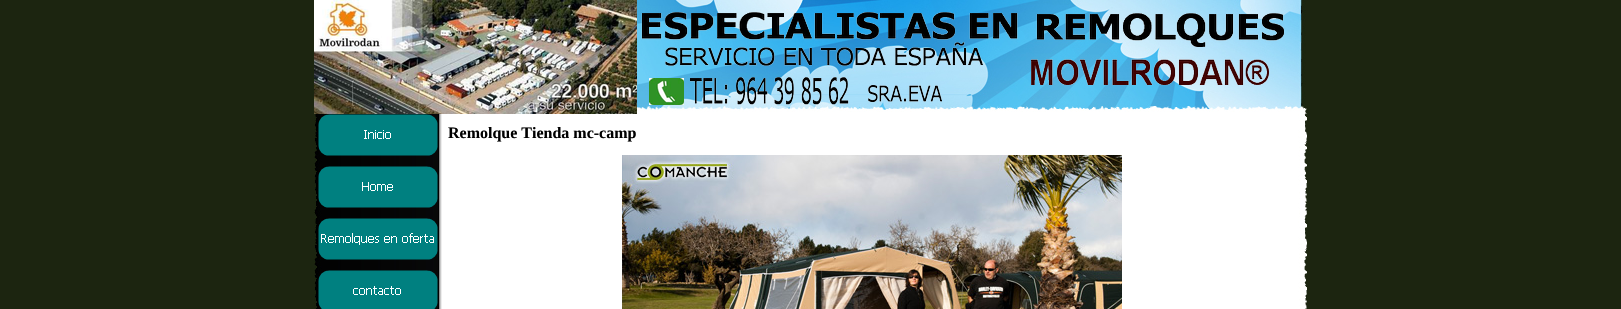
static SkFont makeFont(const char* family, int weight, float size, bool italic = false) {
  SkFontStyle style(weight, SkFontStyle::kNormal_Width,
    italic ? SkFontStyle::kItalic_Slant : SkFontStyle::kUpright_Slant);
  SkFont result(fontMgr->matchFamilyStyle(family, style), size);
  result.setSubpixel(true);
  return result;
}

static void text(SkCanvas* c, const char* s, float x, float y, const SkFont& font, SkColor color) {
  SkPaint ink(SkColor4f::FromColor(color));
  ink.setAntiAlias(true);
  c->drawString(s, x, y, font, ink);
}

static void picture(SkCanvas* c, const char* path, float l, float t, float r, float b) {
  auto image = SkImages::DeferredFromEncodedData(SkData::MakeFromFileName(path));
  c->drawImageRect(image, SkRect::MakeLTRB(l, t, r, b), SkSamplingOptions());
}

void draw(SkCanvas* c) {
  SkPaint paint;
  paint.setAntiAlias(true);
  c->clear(0xff1c2510);
  picture(c, "img_01.png", 314, 0, 1307, 114);
  picture(c, "img_02.png", 314, 114, 442, 309);
  picture(c, "img_03.png", 318, 114, 438, 156);
  picture(c, "img_04.png", 318, 166, 438, 208);
  picture(c, "img_05.png", 318, 218, 438, 260);
  picture(c, "img_06.png", 318, 270, 438, 309);
  picture(c, "img_07.png", 442, 114, 1307, 309);
  SkFont face1 = makeFont("Liberation Serif", 700, 16);
  text(c, "Remolque Tienda mc-camp", 448, 138, face1, 0xff000000);
  picture(c, "img_08.png", 622, 155, 1122, 309);
}
